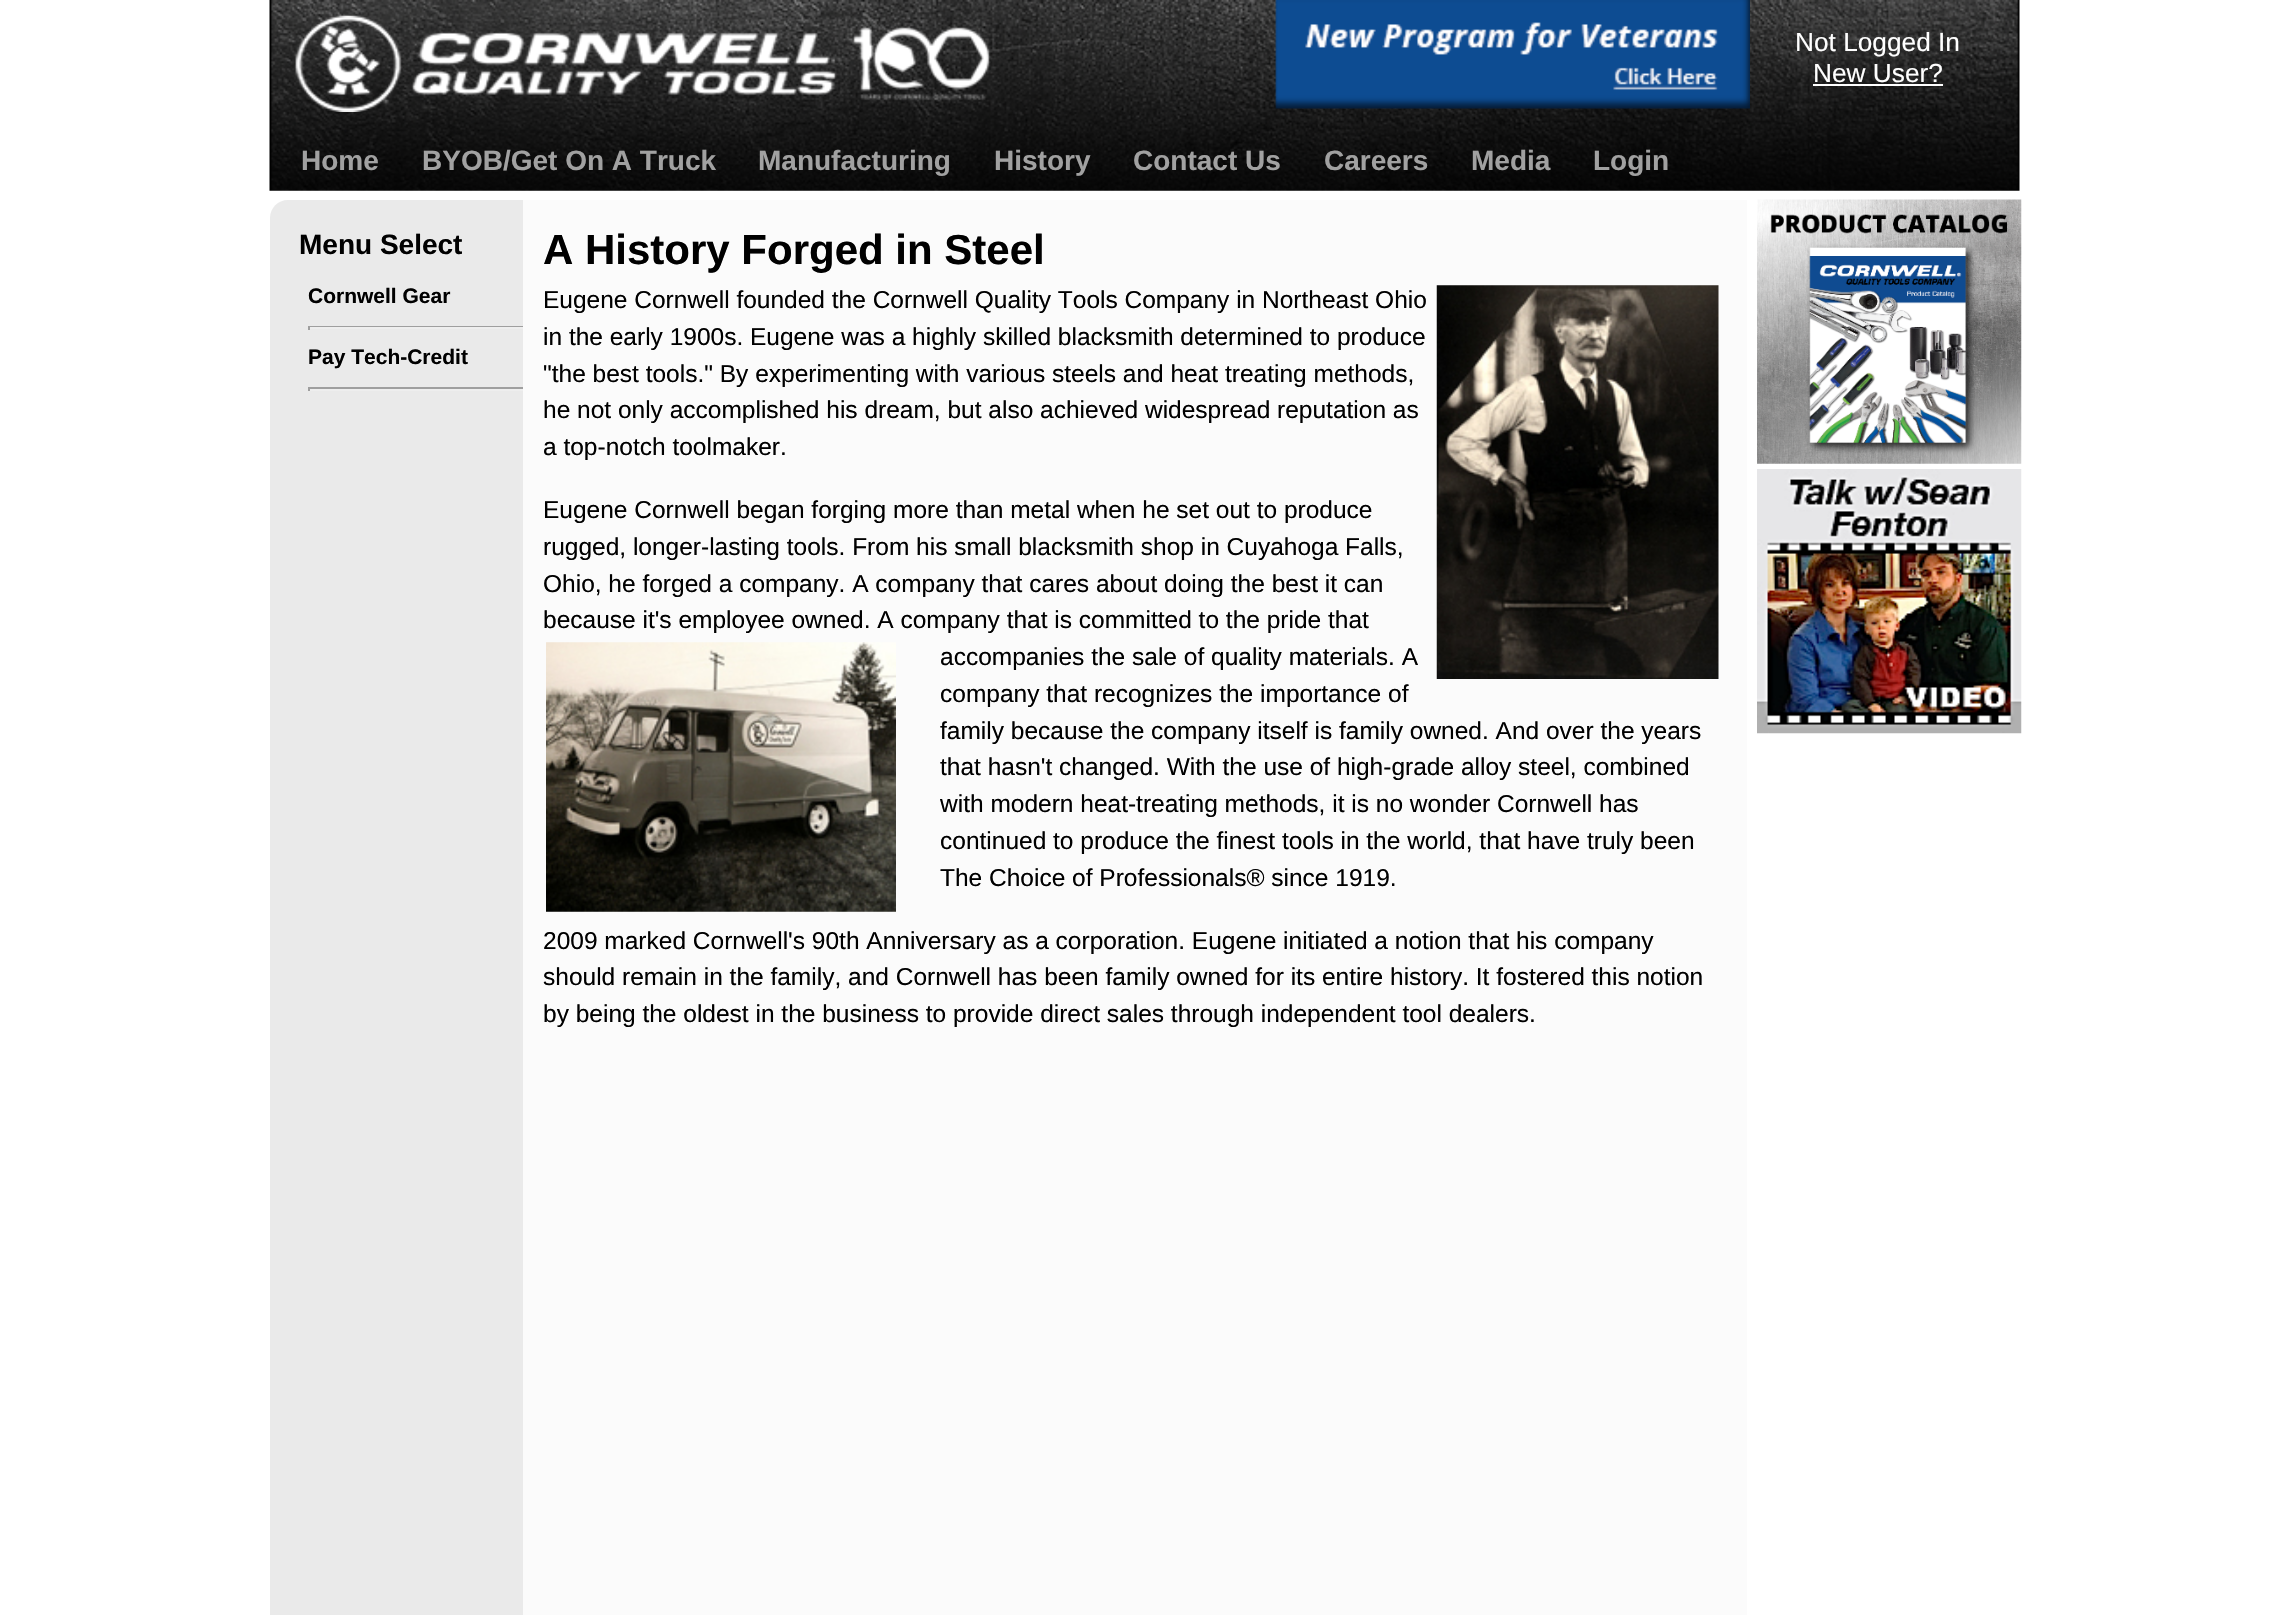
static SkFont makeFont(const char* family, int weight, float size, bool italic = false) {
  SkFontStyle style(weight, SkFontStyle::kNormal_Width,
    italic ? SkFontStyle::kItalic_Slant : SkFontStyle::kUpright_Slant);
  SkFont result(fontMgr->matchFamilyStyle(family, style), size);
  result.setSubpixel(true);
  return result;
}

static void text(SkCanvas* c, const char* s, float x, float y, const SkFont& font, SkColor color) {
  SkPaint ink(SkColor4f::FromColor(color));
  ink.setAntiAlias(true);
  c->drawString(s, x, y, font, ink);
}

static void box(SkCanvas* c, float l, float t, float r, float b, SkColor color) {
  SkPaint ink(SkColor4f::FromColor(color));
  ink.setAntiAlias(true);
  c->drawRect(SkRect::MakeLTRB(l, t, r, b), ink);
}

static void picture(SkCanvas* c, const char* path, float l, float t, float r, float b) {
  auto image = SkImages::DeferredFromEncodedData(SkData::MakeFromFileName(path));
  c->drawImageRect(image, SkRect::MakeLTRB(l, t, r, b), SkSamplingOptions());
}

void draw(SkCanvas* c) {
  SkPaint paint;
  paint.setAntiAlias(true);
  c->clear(0xffffffff);
  picture(c, "img_01.png", 269, 0, 2020, 191);
  picture(c, "img_02.png", 295, 15, 990, 112);
  picture(c, "img_03.png", 1275, 0, 1750, 109);
  SkFont face1 = makeFont("Liberation Sans", 400, 26.25f);
  text(c, "Not Logged In", 1795, 51, face1, 0xffffffff);
  text(c, "New User?", 1813, 82, face1, 0xffffffff);
  box(c, 1813, 84, 1943, 86, 0xffffffff);
  picture(c, "img_04.png", 1613, 68, 1715, 89);
  SkFont face2 = makeFont("Liberation Sans", 700, 28);
  text(c, "Home", 301, 170, face2, 0xffa1a1a1);
  text(c, "BYOB/Get On A Truck", 422, 170, face2, 0xffa1a1a1);
  text(c, "Manufacturing", 758, 170, face2, 0xffa1a1a1);
  text(c, "History", 994, 170, face2, 0xffa1a1a1);
  text(c, "Contact Us", 1133, 170, face2, 0xffa1a1a1);
  text(c, "Careers", 1324, 170, face2, 0xffa1a1a1);
  text(c, "Media", 1471, 170, face2, 0xffa1a1a1);
  text(c, "Login", 1593, 170, face2, 0xffa1a1a1);
  paint.setColor(0xffeaeaea);
  c->drawPath(SkPathBuilder().moveTo(288, 200).lineTo(548, 200).lineTo(548, 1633).lineTo(270, 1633).lineTo(270, 218).cubicTo(270, 208, 278, 200, 288, 200).close().detach(), paint);
  text(c, "Menu Select", 299, 254, face2, 0xff000000);
  SkFont face3 = makeFont("Liberation Sans", 700, 21);
  text(c, "Cornwell Gear", 308, 303, face3, 0xff000000);
  box(c, 308, 326, 530, 327, 0xff9f9f9f);
  box(c, 308, 327, 530, 329, 0xffeeeeee);
  box(c, 308, 326, 310, 330, 0xff9f9f9f);
  text(c, "Pay Tech-Credit", 308, 364, face3, 0xff000000);
  box(c, 308, 387, 530, 389, 0xff9f9f9f);
  box(c, 308, 389, 530, 391, 0xffeeeeee);
  box(c, 308, 387, 310, 391, 0xff9f9f9f);
  box(c, 523, 200, 1747, 1615, 0xfffbfbfb);
  SkFont face4 = makeFont("Liberation Sans", 700, 42);
  text(c, "A History Forged in Steel", 543, 264, face4, 0xff000000);
  SkFont face5 = makeFont("Liberation Sans", 400, 24.5f);
  text(c, "Eugene Cornwell founded the Cornwell Quality Tools Company in Northeast Ohio", 543, 308, face5, 0xff000000);
  picture(c, "img_05.png", 1436, 285, 1719, 679);
  text(c, "in the early 1900s. Eugene was a highly skilled blacksmith determined to produce", 543, 345, face5, 0xff000000);
  text(c, "\"the best tools.\" By experimenting with various steels and heat treating methods,", 543, 382, face5, 0xff000000);
  text(c, "he not only accomplished his dream, but also achieved widespread reputation as", 543, 418, face5, 0xff000000);
  text(c, "a top-notch toolmaker.", 543, 455, face5, 0xff000000);
  text(c, "Eugene Cornwell began forging more than metal when he set out to produce", 543, 518, face5, 0xff000000);
  text(c, "rugged, longer-lasting tools. From his small blacksmith shop in Cuyahoga Falls,", 543, 555, face5, 0xff000000);
  text(c, "Ohio, he forged a company. A company that cares about doing the best it can", 543, 592, face5, 0xff000000);
  text(c, "because it's employee owned. A company that is committed to the pride that", 543, 628, face5, 0xff000000);
  picture(c, "img_06.png", 546, 642, 896, 912);
  text(c, "accompanies the sale of quality materials. A", 940, 665, face5, 0xff000000);
  text(c, "company that recognizes the importance of", 940, 702, face5, 0xff000000);
  text(c, "family because the company itself is family owned. And over the years", 940, 739, face5, 0xff000000);
  text(c, "that hasn't changed. With the use of high-grade alloy steel, combined", 940, 775, face5, 0xff000000);
  text(c, "with modern heat-treating methods, it is no wonder Cornwell has", 940, 812, face5, 0xff000000);
  text(c, "continued to produce the finest tools in the world, that have truly been", 940, 849, face5, 0xff000000);
  text(c, "The Choice of Professionals® since 1919.", 940, 886, face5, 0xff000000);
  text(c, "2009 marked Cornwell's 90th Anniversary as a corporation. Eugene initiated a notion that his company", 543, 949, face5, 0xff000000);
  text(c, "should remain in the family, and Cornwell has been family owned for its entire history. It fostered this notion", 543, 985, face5, 0xff000000);
  text(c, "by being the oldest in the business to provide direct sales through independent tool dealers.", 543, 1022, face5, 0xff000000);
  picture(c, "img_07.png", 1757, 199, 2022, 464);
  picture(c, "img_08.png", 1757, 469, 2022, 734);
}
